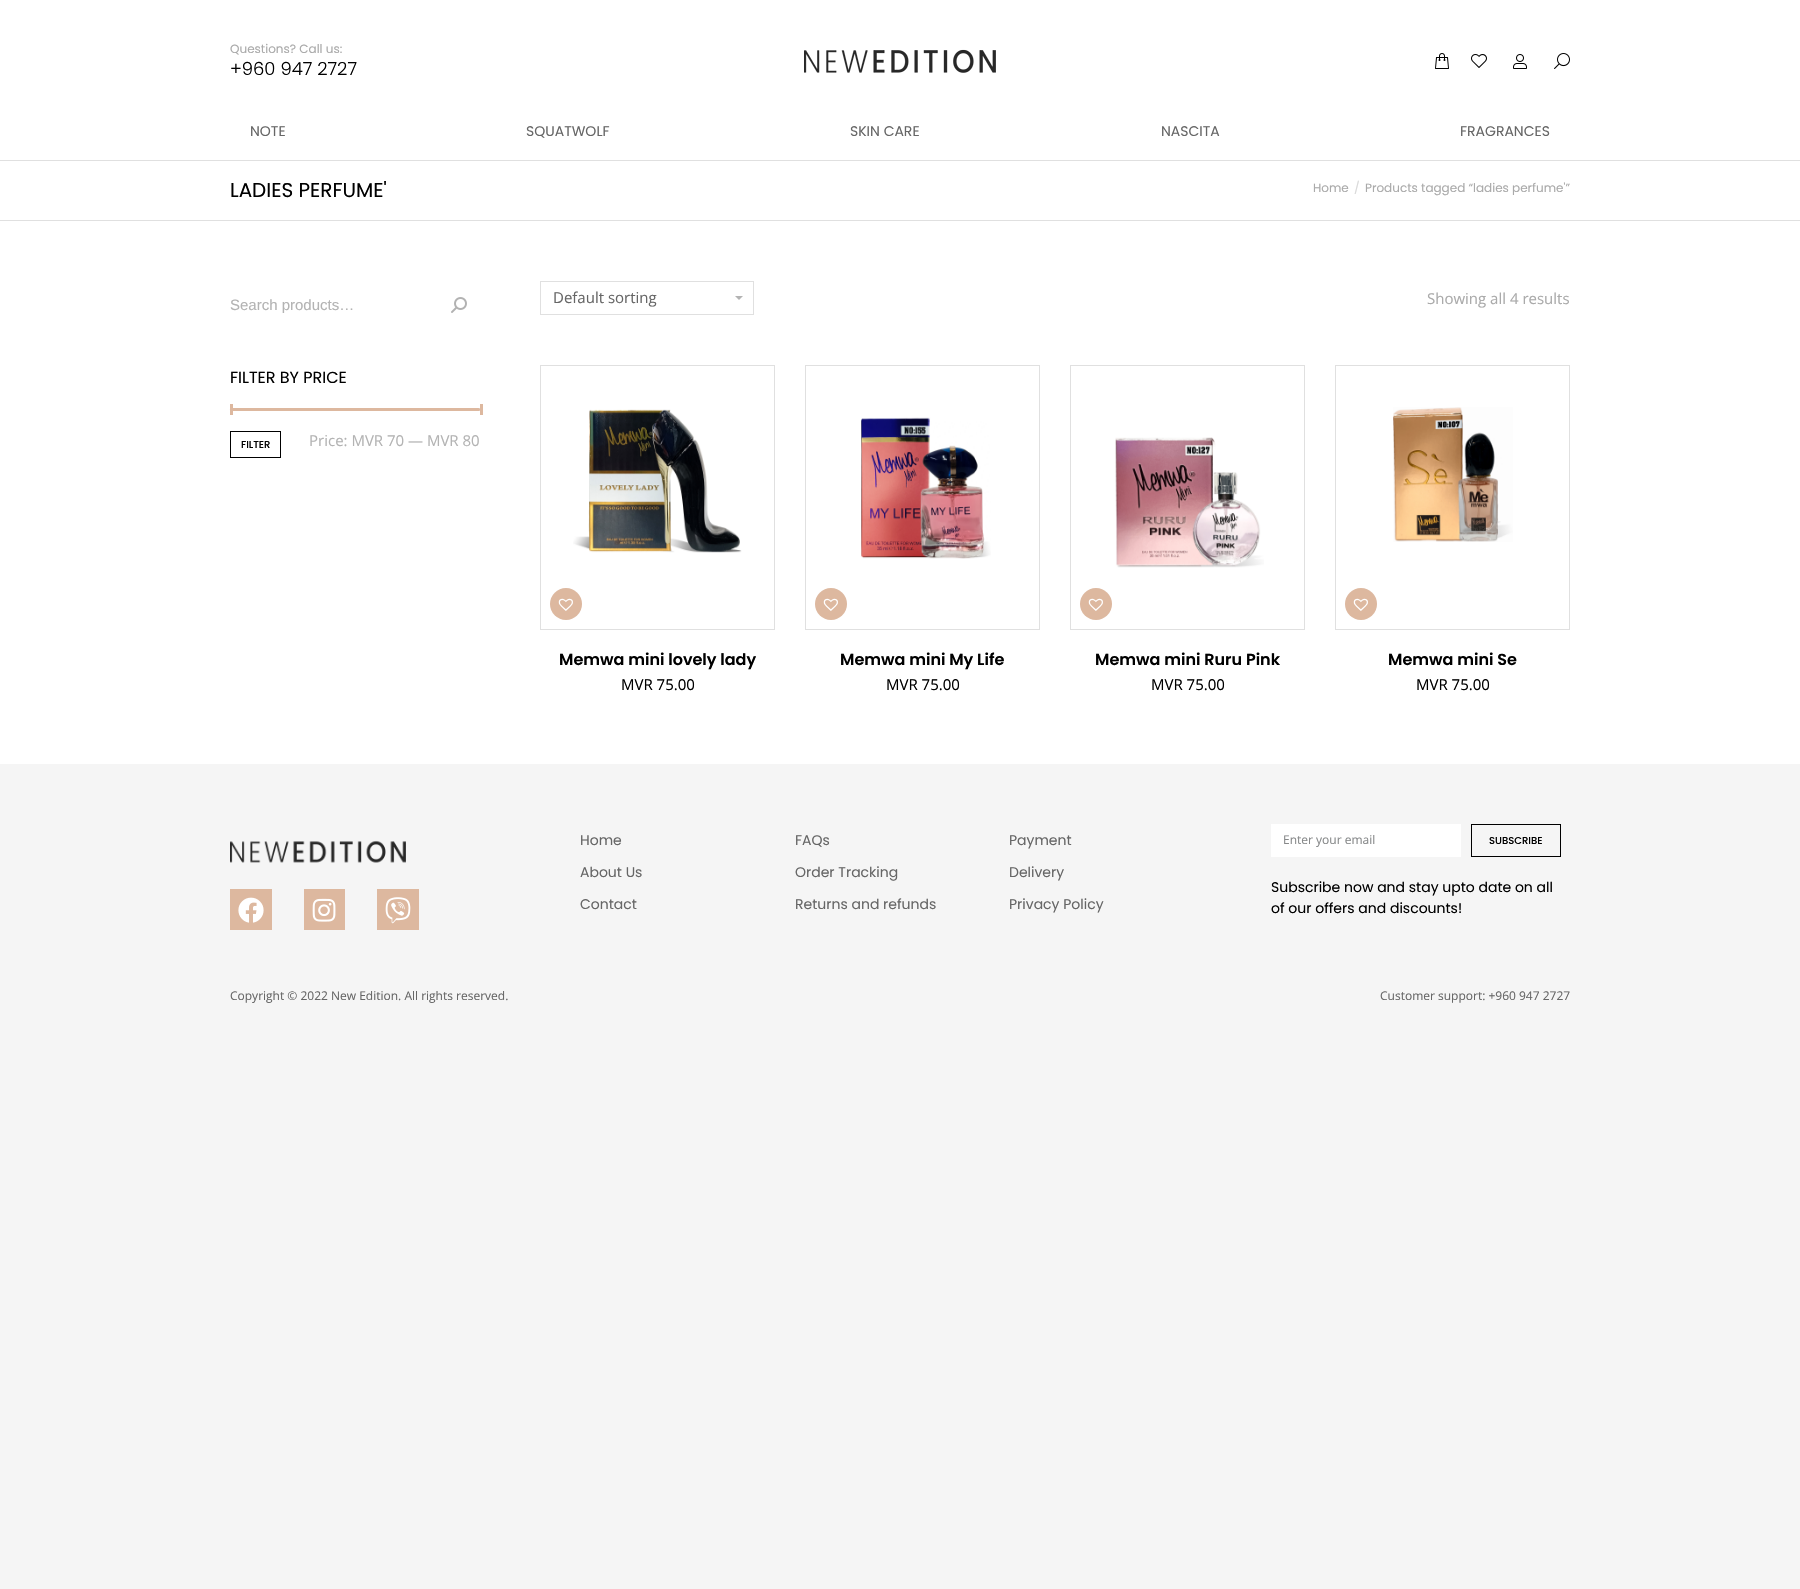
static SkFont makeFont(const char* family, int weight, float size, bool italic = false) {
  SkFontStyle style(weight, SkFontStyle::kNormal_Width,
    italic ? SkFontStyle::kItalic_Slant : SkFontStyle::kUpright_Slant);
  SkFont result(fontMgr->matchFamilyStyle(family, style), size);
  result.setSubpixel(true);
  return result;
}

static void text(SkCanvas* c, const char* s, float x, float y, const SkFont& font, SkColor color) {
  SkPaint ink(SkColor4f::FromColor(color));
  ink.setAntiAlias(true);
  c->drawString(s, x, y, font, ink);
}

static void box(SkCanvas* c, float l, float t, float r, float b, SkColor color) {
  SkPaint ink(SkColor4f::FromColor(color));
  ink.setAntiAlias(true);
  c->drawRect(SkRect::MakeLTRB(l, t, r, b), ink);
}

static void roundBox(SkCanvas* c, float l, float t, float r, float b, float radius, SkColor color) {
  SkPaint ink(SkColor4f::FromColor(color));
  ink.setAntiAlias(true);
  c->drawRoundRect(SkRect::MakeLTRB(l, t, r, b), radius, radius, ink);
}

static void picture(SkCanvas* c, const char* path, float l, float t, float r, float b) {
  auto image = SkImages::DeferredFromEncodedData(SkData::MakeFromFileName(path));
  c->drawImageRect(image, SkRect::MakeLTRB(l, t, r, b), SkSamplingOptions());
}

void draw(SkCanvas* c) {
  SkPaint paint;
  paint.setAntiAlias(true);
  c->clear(0xfff5f5f5);
  box(c, 0, 0, 1800, 764, 0xffffffff);
  box(c, 0, 160, 1800, 161, 0xffe0e0e0);
  SkFont face1 = makeFont("Poppins", 400, 12);
  text(c, "Questions? Call us:", 230, 53, face1, 0xffaaaaaa);
  SkFont face2 = makeFont("Poppins", 300, 18);
  text(c, "+960 947 2727", 230, 75, face2, 0xff000000);
  picture(c, "img_01.png", 804, 49, 996, 73);
  picture(c, "img_02.png", 1435, 53, 1449, 69);
  picture(c, "img_03.png", 1471, 54, 1487, 68);
  picture(c, "img_04.png", 1513, 54, 1527, 69);
  picture(c, "img_05.png", 1554, 53, 1570, 69);
  SkFont face3 = makeFont("Poppins", 400, 14);
  text(c, "NOTE", 250, 136, face3, 0xff666666);
  text(c, "SQUATWOLF", 526, 136, face3, 0xff666666);
  text(c, "SKIN CARE", 850, 136, face3, 0xff666666);
  text(c, "NASCITA", 1161, 136, face3, 0xff666666);
  text(c, "FRAGRANCES", 1460, 136, face3, 0xff666666);
  box(c, 0, 220, 1800, 221, 0xffe0e0e0);
  SkFont face4 = makeFont("Poppins", 400, 20);
  text(c, "LADIES PERFUME'", 230, 197, face4, 0xff000000);
  text(c, "Home", 1313, 192, face1, 0xffaaaaaa);
  text(c, "/", 1354, 192, face1, 0xffd9d9d9);
  text(c, "Products tagged “ladies perfume'”", 1365, 192, face1, 0xffaaaaaa);
  SkFont face5 = makeFont("Liberation Sans", 400, 15);
  text(c, "Search products…", 230, 310, face5, 0xffb3b3b3);
  picture(c, "img_06.png", 451, 297, 467, 313);
  SkFont face6 = makeFont("Poppins", 400, 16);
  text(c, "FILTER BY PRICE", 230, 383, face6, 0xff000000);
  box(c, 478, 408, 480, 411, 0xffe0e0e0);
  roundBox(c, 230, 408, 480, 411, 1.5f, 0xffddb89f);
  box(c, 230, 404, 233, 415, 0xffddb89f);
  box(c, 480, 404, 483, 415, 0xffddb89f);
  paint.setStyle(SkPaint::kStroke_Style);
  paint.setStrokeWidth(1);
  paint.setColor(0xff000000);
  c->drawRect(SkRect::MakeLTRB(230.5f, 431.5f, 280.5f, 457.5f), paint);
  SkFont face7 = makeFont("Poppins", 500, 10);
  text(c, "FILTER", 241, 448, face7, 0xff000000);
  SkFont face8 = makeFont("Open Sans", 400, 15);
  text(c, "Price: MVR 70 — MVR 80", 309, 446, face8, 0xffb3b3b3);
  paint.setStyle(SkPaint::kFill_Style);
  paint.setColor(0xffb3b3b3);
  c->drawPath(SkPathBuilder().moveTo(735, 296).lineTo(739, 300).lineTo(743, 296).close().detach(), paint);
  paint.setStyle(SkPaint::kStroke_Style);
  paint.setColor(0xffe0e0e0);
  c->drawRect(SkRect::MakeLTRB(540.5f, 281.5f, 753.5f, 314.5f), paint);
  text(c, "Default sorting", 553, 303, face8, 0xff666666);
  text(c, "Showing all 4 results", 1427, 304, face8, 0xffaaaaaa);
  c->drawRect(SkRect::MakeLTRB(540.5f, 365.5f, 774.5f, 629.5f), paint);
  picture(c, "img_07.png", 573, 409, 742, 553);
  paint.setStyle(SkPaint::kFill_Style);
  paint.setColor(0xffddb89f);
  c->drawCircle(566, 604, 16, paint);
  picture(c, "img_08.png", 558, 598, 573, 611);
  SkFont face9 = makeFont("Poppins", 600, 16);
  text(c, "Memwa mini lovely lady", 559, 665, face9, 0xff000000);
  text(c, "MVR 75.00", 621, 690, face8, 0xff000000);
  paint.setStyle(SkPaint::kStroke_Style);
  paint.setColor(0xffe0e0e0);
  c->drawRect(SkRect::MakeLTRB(805.5f, 365.5f, 1039.5f, 629.5f), paint);
  picture(c, "img_09.png", 861, 417, 991, 559);
  paint.setStyle(SkPaint::kFill_Style);
  paint.setColor(0xffddb89f);
  c->drawCircle(831, 604, 16, paint);
  picture(c, "img_08.png", 823, 598, 838, 611);
  text(c, "Memwa mini My Life", 840, 665, face9, 0xff000000);
  text(c, "MVR 75.00", 886, 690, face8, 0xff000000);
  paint.setStyle(SkPaint::kStroke_Style);
  paint.setColor(0xffe0e0e0);
  c->drawRect(SkRect::MakeLTRB(1070.5f, 365.5f, 1304.5f, 629.5f), paint);
  picture(c, "img_10.png", 1115, 437, 1264, 568);
  paint.setStyle(SkPaint::kFill_Style);
  paint.setColor(0xffddb89f);
  c->drawCircle(1096, 604, 16, paint);
  picture(c, "img_08.png", 1088, 598, 1103, 611);
  text(c, "Memwa mini Ruru Pink", 1095, 665, face9, 0xff000000);
  text(c, "MVR 75.00", 1151, 690, face8, 0xff000000);
  paint.setStyle(SkPaint::kStroke_Style);
  paint.setColor(0xffe0e0e0);
  c->drawRect(SkRect::MakeLTRB(1335.5f, 365.5f, 1569.5f, 629.5f), paint);
  picture(c, "img_11.png", 1393, 407, 1513, 542);
  paint.setStyle(SkPaint::kFill_Style);
  paint.setColor(0xffddb89f);
  c->drawCircle(1361, 604, 16, paint);
  picture(c, "img_08.png", 1353, 598, 1368, 611);
  text(c, "Memwa mini Se", 1388, 665, face9, 0xff000000);
  text(c, "MVR 75.00", 1416, 690, face8, 0xff000000);
  picture(c, "img_12.png", 230, 840, 406, 863);
  box(c, 230, 889, 272, 930, 0xffddb89f);
  picture(c, "img_13.png", 238, 897, 264, 923);
  box(c, 304, 889, 345, 930, 0xffddb89f);
  picture(c, "img_14.png", 312, 898, 336, 922);
  box(c, 377, 889, 419, 930, 0xffddb89f);
  picture(c, "img_15.png", 385, 897, 411, 924);
  text(c, "Home", 580, 845, face3, 0xff666666);
  text(c, "About Us", 580, 877, face3, 0xff666666);
  text(c, "Contact", 580, 909, face3, 0xff666666);
  text(c, "FAQs", 795, 845, face3, 0xff666666);
  text(c, "Order Tracking", 795, 877, face3, 0xff666666);
  text(c, "Returns and refunds", 795, 909, face3, 0xff666666);
  text(c, "Payment", 1009, 845, face3, 0xff666666);
  text(c, "Delivery", 1009, 877, face3, 0xff666666);
  text(c, "Privacy Policy", 1009, 909, face3, 0xff666666);
  box(c, 1271, 824, 1461, 857, 0xffffffff);
  SkFont face10 = makeFont("Open Sans", 400, 12);
  text(c, "Enter your email", 1283, 844, face10, 0xff87898a);
  paint.setStyle(SkPaint::kStroke_Style);
  paint.setColor(0xff000000);
  c->drawRect(SkRect::MakeLTRB(1471.5f, 824.5f, 1560.5f, 856.5f), paint);
  text(c, "SUBSCRIBE", 1489, 844, face7, 0xff000000);
  text(c, "Subscribe now and stay upto date on all", 1271, 892, face3, 0xff000000);
  text(c, "of our offers and discounts!", 1271, 913, face3, 0xff000000);
  text(c, "Copyright © 2022 New Edition. All rights reserved.", 230, 1000, face10, 0xff666666);
  text(c, "Customer support: +960 947 2727", 1380, 1000, face10, 0xff666666);
}
